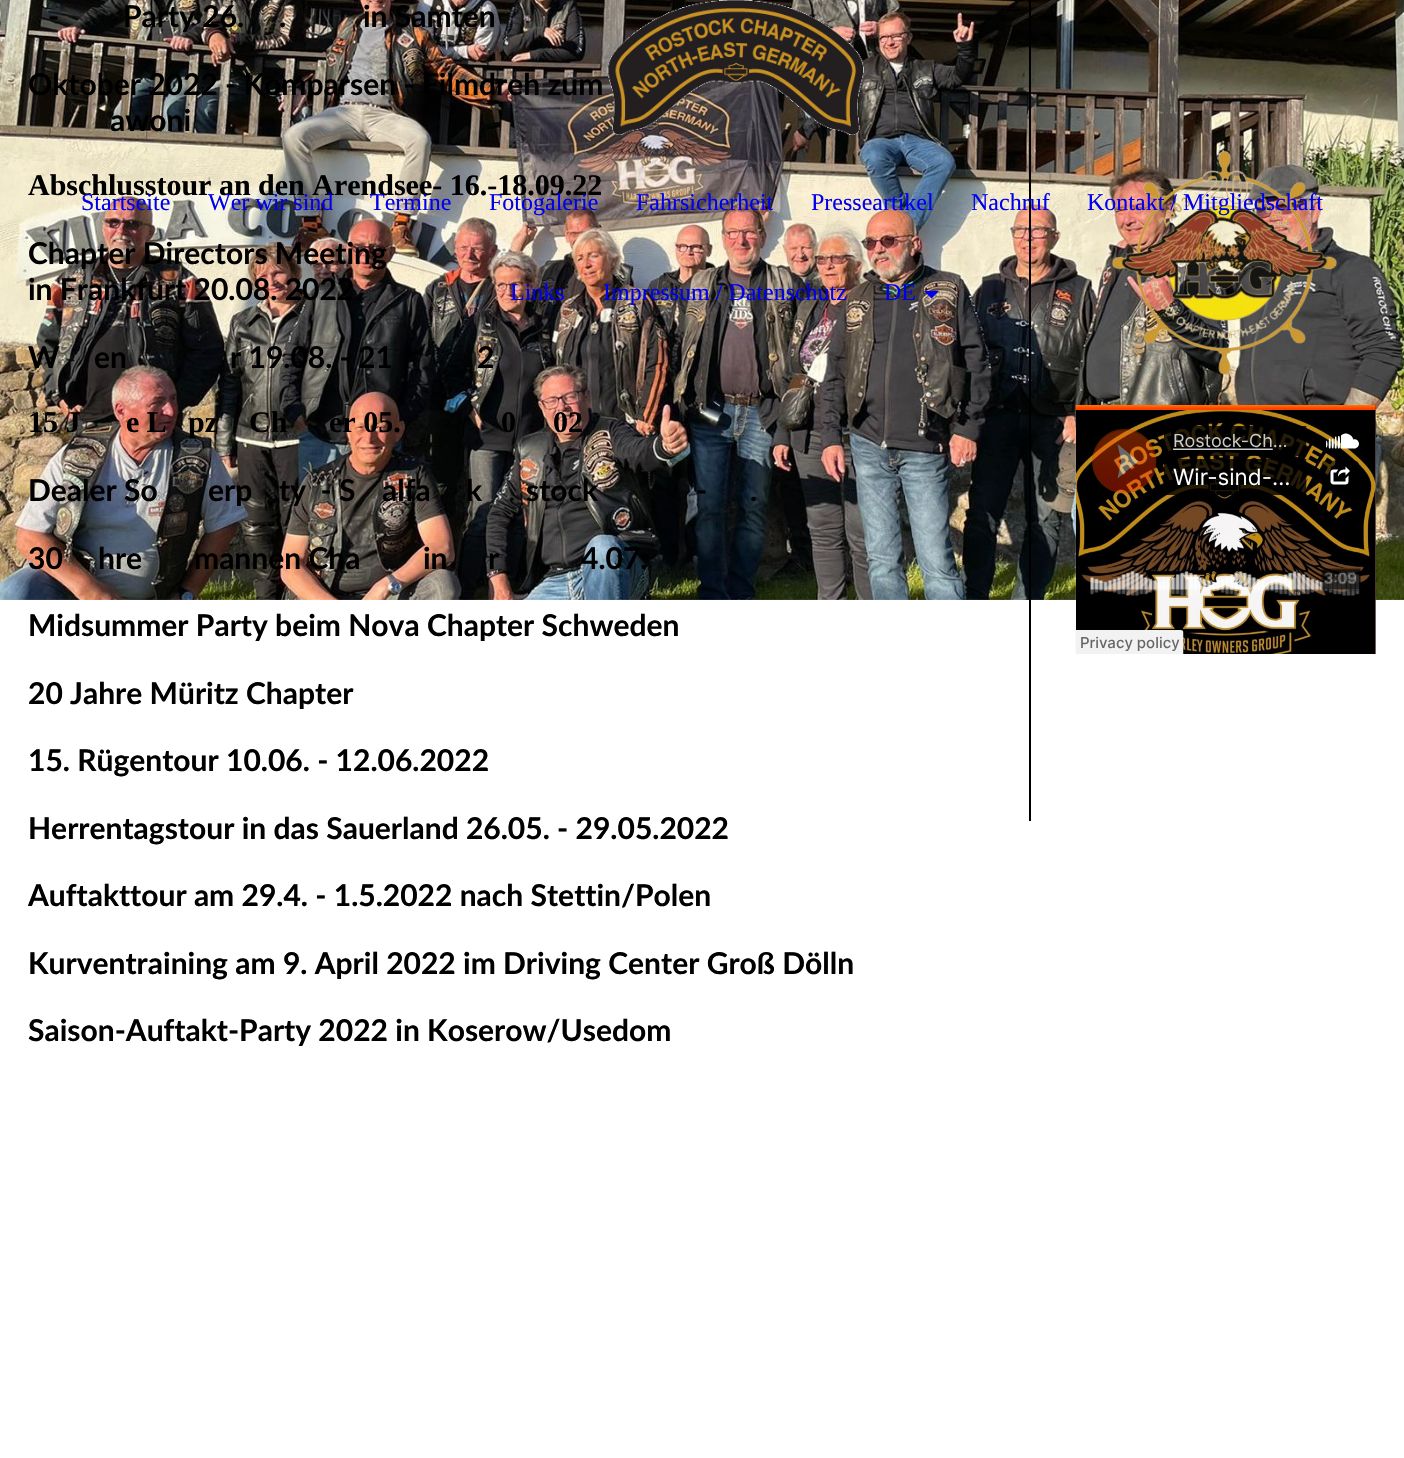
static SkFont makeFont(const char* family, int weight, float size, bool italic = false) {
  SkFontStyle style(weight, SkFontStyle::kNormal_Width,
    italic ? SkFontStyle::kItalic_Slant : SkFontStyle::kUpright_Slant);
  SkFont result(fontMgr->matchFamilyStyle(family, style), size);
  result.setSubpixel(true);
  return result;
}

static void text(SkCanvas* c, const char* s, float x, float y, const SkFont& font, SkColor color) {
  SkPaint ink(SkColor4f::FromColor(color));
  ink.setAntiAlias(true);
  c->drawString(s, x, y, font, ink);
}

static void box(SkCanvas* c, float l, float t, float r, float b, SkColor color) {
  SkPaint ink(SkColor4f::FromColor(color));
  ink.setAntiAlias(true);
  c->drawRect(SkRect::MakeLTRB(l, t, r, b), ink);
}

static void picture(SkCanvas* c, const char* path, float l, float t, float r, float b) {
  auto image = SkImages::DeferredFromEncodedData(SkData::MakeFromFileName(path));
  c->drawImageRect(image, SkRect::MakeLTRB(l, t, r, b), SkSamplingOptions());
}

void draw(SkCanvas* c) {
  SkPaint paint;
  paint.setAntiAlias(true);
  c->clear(0xffffffff);
  picture(c, "img_01.png", 0, 0, 1404, 600);
  SkFont face1 = makeFont("Lato", 700, 30);
  text(c, "-", 48, 27, face1, 0xff000000);
  text(c, "Party 26.", 123, 27, face1, 0xff000000);
  text(c, "in Samten", 363, 27, face1, 0xff000000);
  text(c, ".", 279, 27, face1, 0xff000000);
  text(c, "Oktober 2022 - Komparsen - Filmdreh zum", 28, 95, face1, 0xff000000);
  text(c, "awoni", 110, 131, face1, 0xff000000);
  SkFont face2 = makeFont("Liberation Serif", 700, 30);
  text(c, "Abschlusstour an den Arendsee- 16.-18.09.22", 28, 195, face2, 0xff000000);
  text(c, "Chapter Directors Meeting", 28, 264, face1, 0xff000000);
  text(c, "in Frankfurt 20.08. 2022", 28, 300, face1, 0xff000000);
  text(c, "W", 28, 368, face1, 0xff000000);
  text(c, "en", 94, 368, face1, 0xff000000);
  text(c, "r 19.08. - 21", 230, 368, face1, 0xff000000);
  text(c, "2", 477, 368, face1, 0xff000000);
  text(c, "15 J", 28, 432, face2, 0xff000000);
  text(c, "e L", 126, 432, face2, 0xff000000);
  text(c, "pz", 188, 432, face2, 0xff000000);
  text(c, "Ch", 249, 432, face2, 0xff000000);
  text(c, "er 05.", 329, 432, face2, 0xff000000);
  text(c, "0", 501, 432, face2, 0xff000000);
  text(c, "02", 553, 432, face2, 0xff000000);
  text(c, "Dealer So", 28, 501, face1, 0xff000000);
  text(c, "erp", 208, 501, face1, 0xff000000);
  text(c, "ty  - S", 279, 501, face1, 0xff000000);
  text(c, "alfa", 382, 501, face1, 0xff000000);
  text(c, "k", 466, 501, face1, 0xff000000);
  text(c, "stock", 526, 501, face1, 0xff000000);
  text(c, "-", 696, 501, face1, 0xff000000);
  text(c, ".", 750, 501, face1, 0xff000000);
  text(c, "30", 28, 569, face1, 0xff000000);
  text(c, "hre", 98, 569, face1, 0xff000000);
  text(c, "mannen Cha", 194, 569, face1, 0xff000000);
  text(c, "in", 423, 569, face1, 0xff000000);
  text(c, "r", 488, 569, face1, 0xff000000);
  text(c, "4.07.", 581, 569, face1, 0xff000000);
  text(c, "Midsummer Party beim Nova Chapter Schweden", 28, 636, face1, 0xff000000);
  text(c, "20 Jahre Müritz Chapter", 28, 704, face1, 0xff000000);
  text(c, "15. Rügentour 10.06. - 12.06.2022", 28, 771, face1, 0xff000000);
  text(c, "Herrentagstour in das Sauerland 26.05. - 29.05.2022", 28, 839, face1, 0xff000000);
  text(c, "Auftakttour am 29.4. - 1.5.2022 nach Stettin/Polen", 28, 906, face1, 0xff000000);
  text(c, "Kurventraining am 9. April 2022 im Driving Center Groß Dölln", 28, 974, face1, 0xff000000);
  text(c, "Saison-Auftakt-Party 2022 in Koserow/Usedom", 28, 1041, face1, 0xff000000);
  box(c, 1029, 0, 1031, 821, 0xff000000);
  picture(c, "img_02.png", 1112, 150, 1337, 375);
  picture(c, "img_03.png", 1075, 405, 1376, 654);
  picture(c, "img_04.png", 607, 0, 864, 135);
  SkFont face3 = makeFont("Liberation Serif", 400, 24);
  text(c, "Startseite", 81, 210, face3, 0xff0000ee);
  text(c, "Wer wir sind", 208, 210, face3, 0xff0000ee);
  text(c, "Termine", 370, 210, face3, 0xff0000ee);
  text(c, "Fotogalerie", 489, 210, face3, 0xff0000ee);
  text(c, "Fahrsicherheit", 636, 210, face3, 0xff0000ee);
  text(c, "Presseartikel", 811, 210, face3, 0xff0000ee);
  text(c, "Nachruf", 971, 210, face3, 0xff0000ee);
  text(c, "Kontakt / Mitgliedschaft", 1087, 210, face3, 0xff0000ee);
  text(c, "Links", 510, 300, face3, 0xff0000ee);
  text(c, "Impressum / Datenschutz", 603, 300, face3, 0xff0000ee);
  text(c, "DE", 884, 300, face3, 0xff0000ee);
  paint.setColor(0xff0000ee);
  c->drawPath(SkPathBuilder().moveTo(924, 291).lineTo(939, 291).lineTo(931.5f, 298.5f).close().detach(), paint);
}
